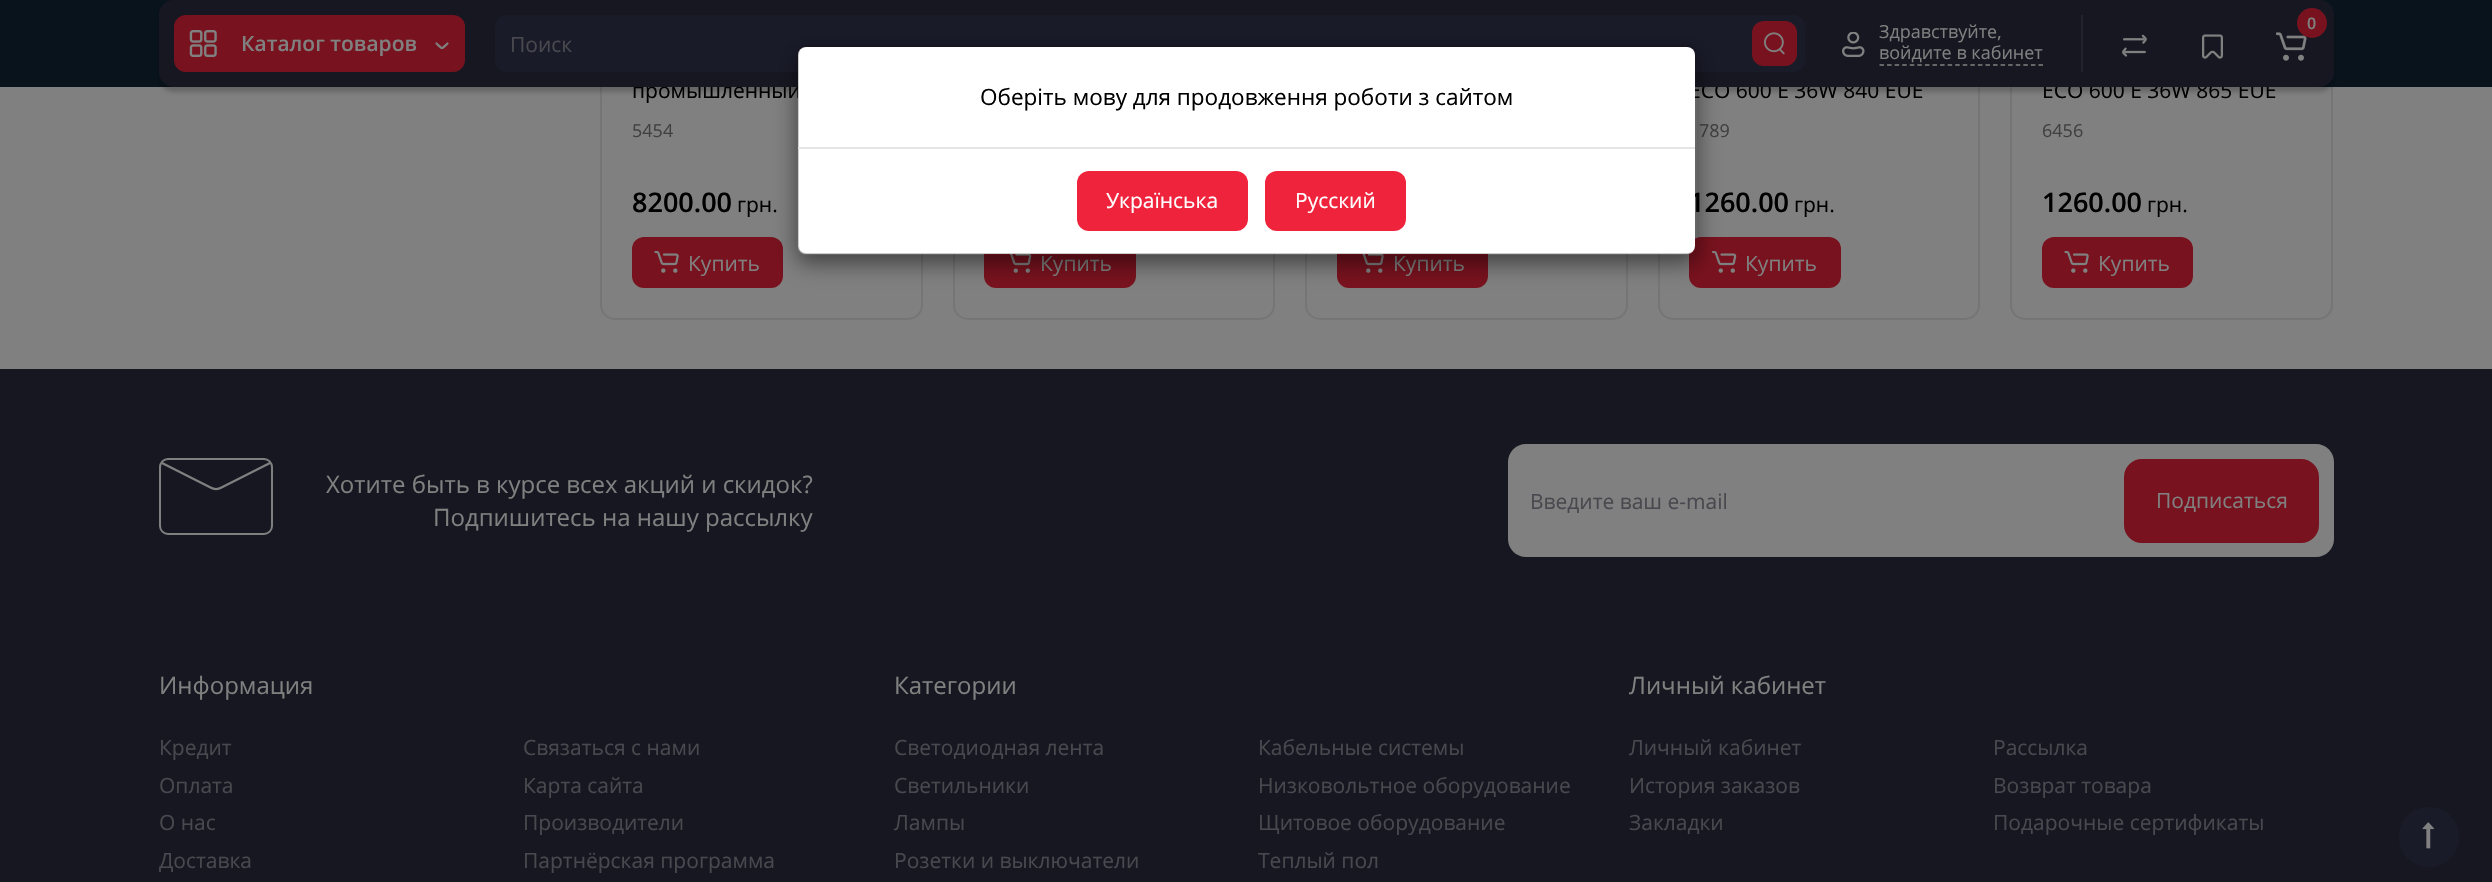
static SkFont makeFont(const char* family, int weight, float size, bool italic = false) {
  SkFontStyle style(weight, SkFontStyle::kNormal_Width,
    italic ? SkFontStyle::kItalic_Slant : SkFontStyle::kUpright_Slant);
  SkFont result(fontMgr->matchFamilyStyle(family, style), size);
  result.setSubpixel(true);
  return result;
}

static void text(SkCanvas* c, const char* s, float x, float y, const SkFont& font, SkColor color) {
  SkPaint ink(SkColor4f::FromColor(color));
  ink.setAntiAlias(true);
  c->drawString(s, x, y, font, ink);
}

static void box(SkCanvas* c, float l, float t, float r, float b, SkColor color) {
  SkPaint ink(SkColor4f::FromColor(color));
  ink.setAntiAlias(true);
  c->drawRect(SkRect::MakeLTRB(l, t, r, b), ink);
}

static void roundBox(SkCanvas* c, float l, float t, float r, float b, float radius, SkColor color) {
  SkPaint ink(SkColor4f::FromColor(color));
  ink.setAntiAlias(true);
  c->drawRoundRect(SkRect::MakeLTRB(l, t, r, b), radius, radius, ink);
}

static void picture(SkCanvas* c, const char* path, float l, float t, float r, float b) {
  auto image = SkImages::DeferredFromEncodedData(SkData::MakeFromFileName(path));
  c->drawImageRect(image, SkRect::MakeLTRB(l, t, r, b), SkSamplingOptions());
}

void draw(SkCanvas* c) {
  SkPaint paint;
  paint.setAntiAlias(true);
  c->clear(0xff808080);
  paint.setStyle(SkPaint::kStroke_Style);
  paint.setStrokeWidth(2);
  paint.setColor(0xff757575);
  c->drawRoundRect(SkRect::MakeLTRB(601, -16, 922, 319), 14, 14, paint);
  SkFont face1 = makeFont("Open Sans", 400, 21);
  text(c, "промышленный", 632, 98, face1, 0xff000000);
  c->drawRoundRect(SkRect::MakeLTRB(954, -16, 1274, 319), 14, 14, paint);
  c->drawRoundRect(SkRect::MakeLTRB(1306, -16, 1627, 319), 14, 14, paint);
  c->drawRoundRect(SkRect::MakeLTRB(1659, -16, 1979, 319), 14, 14, paint);
  text(c, "ECO 600 E 36W 840 EUE", 1689, 98, face1, 0xff000000);
  c->drawRoundRect(SkRect::MakeLTRB(2011, -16, 2332, 319), 14, 14, paint);
  text(c, "ECO 600 E 36W 865 EUE", 2042, 98, face1, 0xff000000);
  box(c, 0, 0, 2492, 87, 0xff09131c);
  paint.setStyle(SkPaint::kFill_Style);
  paint.setColor(0x33000000);
  paint.setMaskFilter(SkMaskFilter::MakeBlur(kNormal_SkBlurStyle, 2));
  c->drawRoundRect(SkRect::MakeLTRB(159, 5, 2334, 92), 15, 15, paint);
  paint.setMaskFilter(nullptr);
  roundBox(c, 159, 0, 2334, 87, 15, 0xff161721);
  roundBox(c, 174, 15, 465, 72, 12, 0xff78121e);
  picture(c, "img_01.png", 189, 30, 217, 57);
  SkFont face2 = makeFont("Open Sans", 600, 21);
  text(c, "Каталог товаров", 241, 51, face2, 0xff808080);
  paint.setStyle(SkPaint::kStroke_Style);
  paint.setStrokeWidth(2.2f);
  paint.setStrokeCap(SkPaint::kRound_Cap);
  paint.setColor(0xff808080);
  c->drawPath(SkPathBuilder().moveTo(447.5f, 43.5f).cubicTo(441, 49.5f, 443, 49.5f, 436.5f, 43.5f).detach(), paint);
  paint.setStyle(SkPaint::kFill_Style);
  paint.setColor(0xff1a1b29);
  c->drawPath(SkPathBuilder().moveTo(507, 15).lineTo(1745, 15).lineTo(1745, 72).lineTo(507, 72).cubicTo(500.5f, 72, 495, 66.5f, 495, 60).lineTo(495, 27).cubicTo(495, 20.5f, 500.5f, 15, 507, 15).close().detach(), paint);
  text(c, "Поиск", 510, 52, face1, 0xff48484e);
  c->drawPath(SkPathBuilder().moveTo(1745, 15).lineTo(1793, 15).cubicTo(1799.5f, 15, 1805, 20.5f, 1805, 27).lineTo(1805, 60).cubicTo(1805, 66.5f, 1799.5f, 72, 1793, 72).lineTo(1745, 72).close().detach(), paint);
  roundBox(c, 1752, 21, 1797, 66, 12, 0xff78121e);
  picture(c, "img_02.png", 1764, 32, 1785, 55);
  picture(c, "img_03.png", 1842, 32, 1865, 57);
  SkFont face3 = makeFont("Open Sans", 400, 18);
  text(c, "Здравствуйте,", 1879, 38, face3, 0xff808080);
  paint.setStyle(SkPaint::kStroke_Style);
  paint.setStrokeWidth(1.5f);
  paint.setStrokeCap(SkPaint::kButt_Cap);
  paint.setColor(0xff808080);
  paint.setPathEffect(SkDashPathEffect::Make({{4.5f, 3.07f}}, 0));
  c->drawPath(SkPathBuilder().moveTo(1879.5f, 65).lineTo(2043, 65).detach(), paint);
  paint.setPathEffect(nullptr);
  text(c, "войдите в кабинет", 1879, 59, face3, 0xff808080);
  box(c, 2081, 15, 2083, 72, 0xff23232b);
  picture(c, "img_04.png", 2276, 32, 2307, 61);
  paint.setStyle(SkPaint::kFill_Style);
  paint.setColor(0xff78121e);
  c->drawCircle(2312, 23, 15, paint);
  SkFont face4 = makeFont("Open Sans", 600, 16);
  text(c, "0", 2307, 29, face4, 0xff808080);
  picture(c, "img_05.png", 2122, 34, 2147, 57);
  picture(c, "img_06.png", 2202, 34, 2223, 59);
  text(c, "5454", 632, 137, face3, 0xff404040);
  SkFont face5 = makeFont("Open Sans", 600, 27);
  text(c, "8200.00", 632, 212, face5, 0xff000000);
  text(c, "грн.", 737, 212, face1, 0xff000000);
  roundBox(c, 632, 237, 783, 288, 12, 0xff78121e);
  picture(c, "img_07.png", 654, 251, 679, 273);
  text(c, "Купить", 688, 271, face1, 0xff808080);
  roundBox(c, 984, 237, 1136, 288, 12, 0xff78121e);
  picture(c, "img_08.png", 1010, 254, 1032, 273);
  text(c, "Купить", 1040, 271, face1, 0xff808080);
  roundBox(c, 1337, 237, 1488, 288, 12, 0xff78121e);
  picture(c, "img_09.png", 1362, 254, 1384, 273);
  text(c, "Купить", 1393, 271, face1, 0xff808080);
  text(c, "789", 1699, 137, face3, 0xff404040);
  text(c, "1260.00", 1689, 212, face5, 0xff000000);
  text(c, "грн.", 1794, 212, face1, 0xff000000);
  roundBox(c, 1689, 237, 1841, 288, 12, 0xff78121e);
  picture(c, "img_10.png", 1712, 251, 1737, 273);
  text(c, "Купить", 1745, 271, face1, 0xff808080);
  text(c, "6456", 2042, 137, face3, 0xff404040);
  text(c, "1260.00", 2042, 212, face5, 0xff000000);
  text(c, "грн.", 2147, 212, face1, 0xff000000);
  roundBox(c, 2042, 237, 2193, 288, 12, 0xff78121e);
  picture(c, "img_07.png", 2064, 251, 2089, 273);
  text(c, "Купить", 2098, 271, face1, 0xff808080);
  c->save();
  c->clipPath(SkPathBuilder(SkPathFillType::kEvenOdd).moveTo(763, 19).lineTo(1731, 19).lineTo(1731, 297).lineTo(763, 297).close().moveTo(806, 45).lineTo(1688, 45).cubicTo(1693, 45, 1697, 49, 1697, 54).lineTo(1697, 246).cubicTo(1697, 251, 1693, 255, 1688, 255).lineTo(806, 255).cubicTo(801, 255, 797, 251, 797, 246).lineTo(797, 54).cubicTo(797, 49, 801, 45, 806, 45).close().detach(), true);
  paint.setColor(0x80000000);
  paint.setMaskFilter(SkMaskFilter::MakeBlur(kNormal_SkBlurStyle, 11));
  c->drawRoundRect(SkRect::MakeLTRB(797, 53, 1697, 263), 9, 9, paint);
  paint.setMaskFilter(nullptr);
  c->restore();
  roundBox(c, 798, 47, 1695, 254, 8, 0xffffffff);
  paint.setStyle(SkPaint::kStroke_Style);
  paint.setStrokeWidth(2);
  paint.setColor(0x33000000);
  c->drawRoundRect(SkRect::MakeLTRB(798, 46, 1696, 254), 8, 8, paint);
  box(c, 798, 147, 1695, 149, 0xffe5e5e5);
  SkFont face6 = makeFont("Open Sans", 400, 22.5f);
  text(c, "Оберіть мову для продовження роботи з сайтом", 980, 105, face6, 0xff000000);
  roundBox(c, 1077, 171, 1248, 231, 12, 0xffef233c);
  text(c, "Українська", 1106, 208, face1, 0xffffffff);
  roundBox(c, 1265, 171, 1406, 231, 12, 0xffef233c);
  text(c, "Русский", 1295, 208, face1, 0xffffffff);
  box(c, 0, 369, 2492, 882, 0xff161721);
  paint.setColor(0xff808080);
  c->drawRoundRect(SkRect::MakeLTRB(160, 459, 272, 534), 8, 8, paint);
  paint.setStrokeWidth(2.2f);
  c->drawPath(SkPathBuilder().moveTo(162, 463).lineTo(210.5f, 487.5f).cubicTo(214, 489.5f, 218, 489.5f, 221.5f, 487.5f).lineTo(270, 463).detach(), paint);
  SkFont face7 = makeFont("Open Sans", 400, 24);
  text(c, "Хотите быть в курсе всех акций и скидок?", 326, 493, face7, 0xff808080);
  text(c, "Подпишитесь на нашу рассылку", 433, 526, face7, 0xff808080);
  paint.setStyle(SkPaint::kFill_Style);
  c->drawPath(SkPathBuilder().moveTo(1526, 444).lineTo(2126, 444).lineTo(2126, 557).lineTo(1526, 557).cubicTo(1516, 557, 1508, 549, 1508, 539).lineTo(1508, 462).cubicTo(1508, 452, 1516, 444, 1526, 444).close().detach(), paint);
  text(c, "Введите ваш e-mail", 1530, 509, face1, 0xff48484e);
  c->drawPath(SkPathBuilder().moveTo(2126, 444).lineTo(2316, 444).cubicTo(2326, 444, 2334, 452, 2334, 462).lineTo(2334, 539).cubicTo(2334, 549, 2326, 557, 2316, 557).lineTo(2126, 557).close().detach(), paint);
  paint.setColor(0xff78121e);
  c->drawRoundRect(SkRect::MakeLTRB(2125, 460, 2318, 542), 17, 17, paint);
  paint.setStyle(SkPaint::kStroke_Style);
  paint.setStrokeWidth(2);
  c->drawRoundRect(SkRect::MakeLTRB(2125, 460, 2318, 542), 17, 17, paint);
  text(c, "Подписаться", 2156, 508, face1, 0xff808080);
  text(c, "Информация", 159, 694, face7, 0xff808080);
  text(c, "Кредит", 159, 755, face1, 0xff48484e);
  text(c, "Связаться с нами", 523, 755, face1, 0xff48484e);
  text(c, "Оплата", 159, 793, face1, 0xff48484e);
  text(c, "Карта сайта", 523, 793, face1, 0xff48484e);
  text(c, "О нас", 159, 830, face1, 0xff48484e);
  text(c, "Производители", 523, 830, face1, 0xff48484e);
  text(c, "Доставка", 159, 868, face1, 0xff48484e);
  text(c, "Партнёрская программа", 523, 868, face1, 0xff48484e);
  text(c, "Категории", 894, 694, face7, 0xff808080);
  text(c, "Светодиодная лента", 894, 755, face1, 0xff48484e);
  text(c, "Кабельные системы", 1258, 755, face1, 0xff48484e);
  text(c, "Светильники", 894, 793, face1, 0xff48484e);
  text(c, "Низковольтное оборудование", 1258, 793, face1, 0xff48484e);
  text(c, "Лампы", 894, 830, face1, 0xff48484e);
  text(c, "Щитовое оборудование", 1258, 830, face1, 0xff48484e);
  text(c, "Розетки и выключатели", 894, 868, face1, 0xff48484e);
  text(c, "Теплый пол", 1258, 868, face1, 0xff48484e);
  text(c, "Личный кабинет", 1629, 694, face7, 0xff808080);
  text(c, "Личный кабинет", 1629, 755, face1, 0xff48484e);
  text(c, "Рассылка", 1993, 755, face1, 0xff48484e);
  text(c, "История заказов", 1629, 793, face1, 0xff48484e);
  text(c, "Возврат товара", 1993, 793, face1, 0xff48484e);
  text(c, "Закладки", 1629, 830, face1, 0xff48484e);
  text(c, "Подарочные сертификаты", 1993, 830, face1, 0xff48484e);
  paint.setStyle(SkPaint::kFill_Style);
  paint.setColor(0xff1a1b29);
  c->drawCircle(2429, 837, 30, paint);
  picture(c, "img_11.png", 2422, 822, 2434, 849);
}
